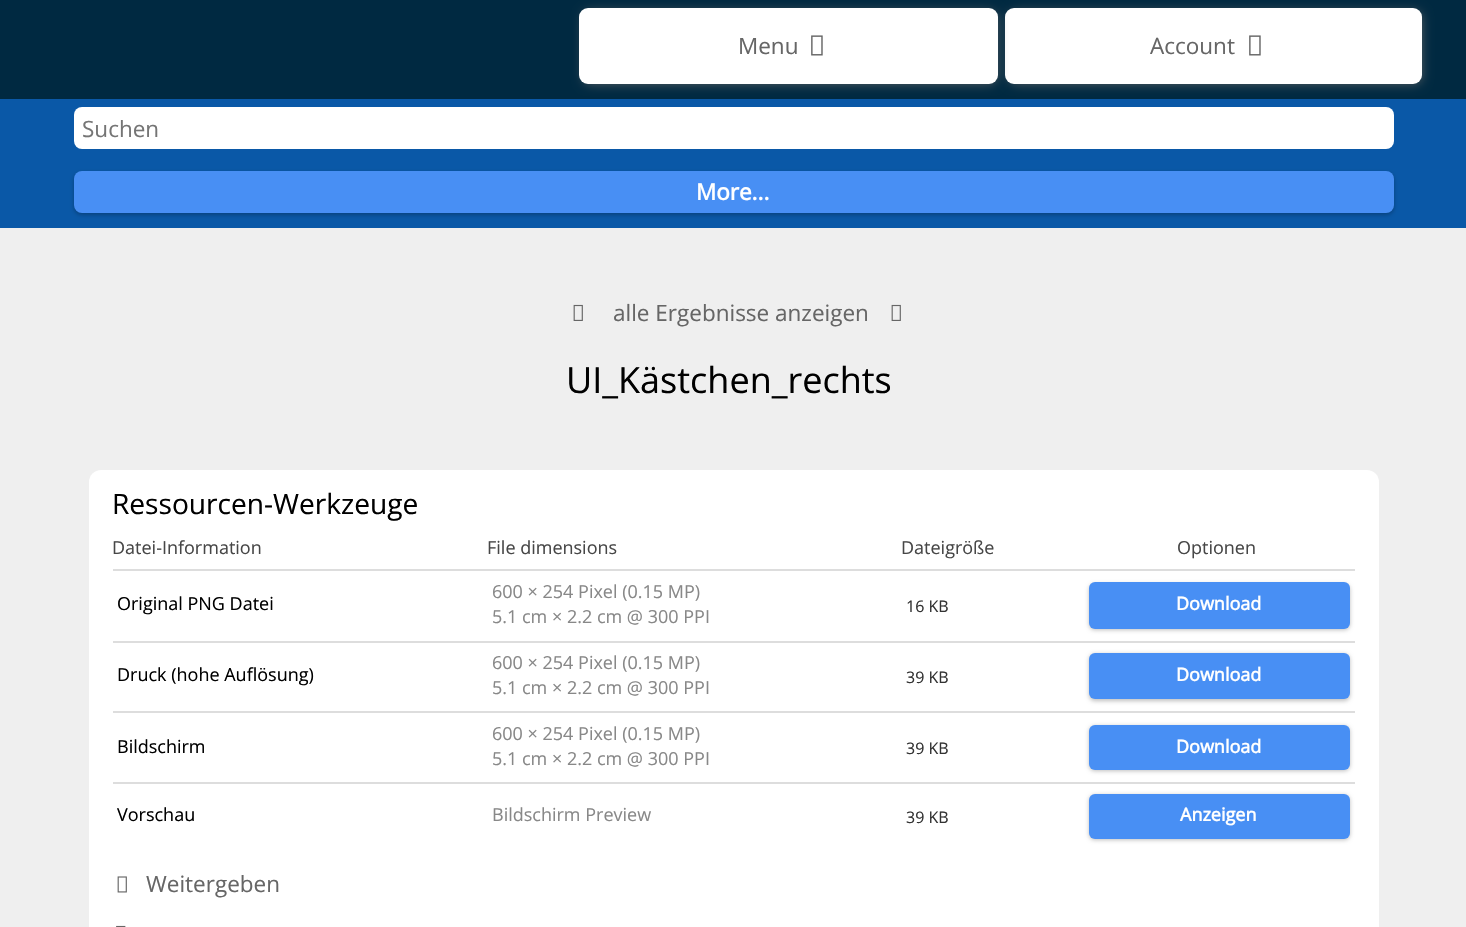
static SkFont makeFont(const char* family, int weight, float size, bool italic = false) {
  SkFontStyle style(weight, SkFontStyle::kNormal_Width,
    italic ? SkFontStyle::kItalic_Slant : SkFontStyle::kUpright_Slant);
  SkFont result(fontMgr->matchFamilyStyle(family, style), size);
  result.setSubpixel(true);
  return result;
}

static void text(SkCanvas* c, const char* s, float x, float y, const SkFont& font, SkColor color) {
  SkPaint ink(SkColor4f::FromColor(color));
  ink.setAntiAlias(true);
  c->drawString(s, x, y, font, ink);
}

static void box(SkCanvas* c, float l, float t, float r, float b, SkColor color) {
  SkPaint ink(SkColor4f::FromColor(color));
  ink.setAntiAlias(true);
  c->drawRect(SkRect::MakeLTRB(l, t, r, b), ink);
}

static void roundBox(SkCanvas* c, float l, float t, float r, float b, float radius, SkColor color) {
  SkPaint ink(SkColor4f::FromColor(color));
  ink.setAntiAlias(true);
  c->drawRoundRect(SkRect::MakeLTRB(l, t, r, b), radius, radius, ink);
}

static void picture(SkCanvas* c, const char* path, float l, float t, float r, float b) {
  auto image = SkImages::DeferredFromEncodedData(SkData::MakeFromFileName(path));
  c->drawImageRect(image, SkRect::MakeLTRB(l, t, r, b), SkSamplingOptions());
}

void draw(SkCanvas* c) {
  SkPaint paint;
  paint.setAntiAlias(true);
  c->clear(0xffefefef);
  box(c, 0, 0, 1466, 99, 0xff002941);
  box(c, 0, 99, 1466, 228, 0xff0a58a7);
  paint.setColor(0xff666666);
  paint.setMaskFilter(SkMaskFilter::MakeBlur(kNormal_SkBlurStyle, 6));
  c->drawRoundRect(SkRect::MakeLTRB(1010, 12, 1421, 83), 6, 6, paint);
  paint.setMaskFilter(nullptr);
  roundBox(c, 1005, 8, 1422, 84, 9, 0xffffffff);
  paint.setMaskFilter(SkMaskFilter::MakeBlur(kNormal_SkBlurStyle, 6));
  c->drawRoundRect(SkRect::MakeLTRB(584, 12, 996, 83), 6, 6, paint);
  paint.setMaskFilter(nullptr);
  roundBox(c, 579, 8, 998, 84, 9, 0xffffffff);
  SkFont face1 = makeFont("Open Sans", 400, 22.5f);
  text(c, "Menu", 738, 54, face1, 0xff666666);
  picture(c, "img_01.png", 811, 35, 823, 56);
  text(c, "Account", 1150, 54, face1, 0xff666666);
  picture(c, "img_01.png", 1249, 35, 1261, 56);
  roundBox(c, 74, 107, 1394, 149, 8, 0xffffffff);
  text(c, "Suchen", 82, 137, face1, 0xff757575);
  paint.setColor(0x40000000);
  paint.setMaskFilter(SkMaskFilter::MakeBlur(kNormal_SkBlurStyle, 2));
  c->drawRoundRect(SkRect::MakeLTRB(74, 173, 1394, 215), 8, 8, paint);
  paint.setMaskFilter(nullptr);
  roundBox(c, 74, 171, 1394, 213, 8, 0xff488ff4);
  SkFont face2 = makeFont("Open Sans", 700, 22.5f);
  text(c, "More...", 696, 200, face2, 0xffffffff);
  picture(c, "img_02.png", 573, 304, 583, 321);
  text(c, "alle Ergebnisse anzeigen", 613, 321, face1, 0xff666666);
  picture(c, "img_02.png", 891, 304, 901, 321);
  SkFont face3 = makeFont("Open Sans", 400, 36);
  text(c, "UI_Kästchen_rechts", 566, 393, face3, 0xff000000);
  roundBox(c, 89, 470, 1379, 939, 12, 0xffffffff);
  SkFont face4 = makeFont("Open Sans", 400, 28.1f);
  text(c, "Ressourcen-Werkzeuge", 112, 514, face4, 0xff000000);
  SkFont face5 = makeFont("Open Sans", 400, 18);
  text(c, "Datei-Information", 112, 554, face5, 0xff474747);
  text(c, "File dimensions", 487, 554, face5, 0xff474747);
  text(c, "Dateigröße", 901, 554, face5, 0xff474747);
  text(c, "Optionen", 1177, 554, face5, 0xff474747);
  box(c, 113, 569, 1355, 571, 0xffdddddd);
  text(c, "Original PNG Datei", 117, 610, face5, 0xff000000);
  text(c, "600 × 254 Pixel (0.15 MP)", 492, 598, face5, 0xff888888);
  text(c, "5.1 cm × 2.2 cm @ 300 PPI", 492, 623, face5, 0xff888888);
  SkFont face6 = makeFont("Open Sans", 400, 16);
  text(c, "16 KB", 906, 612, face6, 0xff333333);
  paint.setMaskFilter(SkMaskFilter::MakeBlur(kNormal_SkBlurStyle, 2));
  c->drawRoundRect(SkRect::MakeLTRB(1089, 584, 1350, 630), 6, 6, paint);
  paint.setMaskFilter(nullptr);
  roundBox(c, 1089, 582, 1350, 629, 6, 0xff488ff4);
  SkFont face7 = makeFont("Open Sans", 700, 18);
  text(c, "Download", 1176, 610, face7, 0xffffffff);
  box(c, 113, 641, 1355, 643, 0xffdddddd);
  text(c, "Druck (hohe Auflösung)", 117, 681, face5, 0xff000000);
  text(c, "600 × 254 Pixel (0.15 MP)", 492, 669, face5, 0xff888888);
  text(c, "5.1 cm × 2.2 cm @ 300 PPI", 492, 694, face5, 0xff888888);
  text(c, "39 KB", 906, 683, face6, 0xff333333);
  paint.setMaskFilter(SkMaskFilter::MakeBlur(kNormal_SkBlurStyle, 2));
  c->drawRoundRect(SkRect::MakeLTRB(1089, 654, 1350, 701), 6, 6, paint);
  paint.setMaskFilter(nullptr);
  roundBox(c, 1089, 653, 1350, 699, 6, 0xff488ff4);
  text(c, "Download", 1176, 681, face7, 0xffffffff);
  box(c, 113, 711, 1355, 713, 0xffdddddd);
  text(c, "Bildschirm", 117, 753, face5, 0xff000000);
  text(c, "600 × 254 Pixel (0.15 MP)", 492, 740, face5, 0xff888888);
  text(c, "5.1 cm × 2.2 cm @ 300 PPI", 492, 765, face5, 0xff888888);
  text(c, "39 KB", 906, 754, face6, 0xff333333);
  paint.setMaskFilter(SkMaskFilter::MakeBlur(kNormal_SkBlurStyle, 2));
  c->drawRoundRect(SkRect::MakeLTRB(1089, 726, 1350, 771), 6, 6, paint);
  paint.setMaskFilter(nullptr);
  roundBox(c, 1089, 725, 1350, 770, 6, 0xff488ff4);
  text(c, "Download", 1176, 753, face7, 0xffffffff);
  box(c, 113, 782, 1355, 784, 0xffdddddd);
  text(c, "Vorschau", 117, 821, face5, 0xff000000);
  text(c, "Bildschirm Preview", 492, 821, face5, 0xff888888);
  text(c, "39 KB", 906, 823, face6, 0xff333333);
  paint.setMaskFilter(SkMaskFilter::MakeBlur(kNormal_SkBlurStyle, 2));
  c->drawRoundRect(SkRect::MakeLTRB(1089, 795, 1350, 840), 6, 6, paint);
  paint.setMaskFilter(nullptr);
  roundBox(c, 1089, 794, 1350, 839, 6, 0xff488ff4);
  text(c, "Anzeigen", 1180, 821, face7, 0xffffffff);
  picture(c, "img_03.png", 117, 876, 127, 893);
  text(c, "Weitergeben", 146, 892, face1, 0xff666666);
  picture(c, "img_04.png", 116, 925, 126, 927);
}
